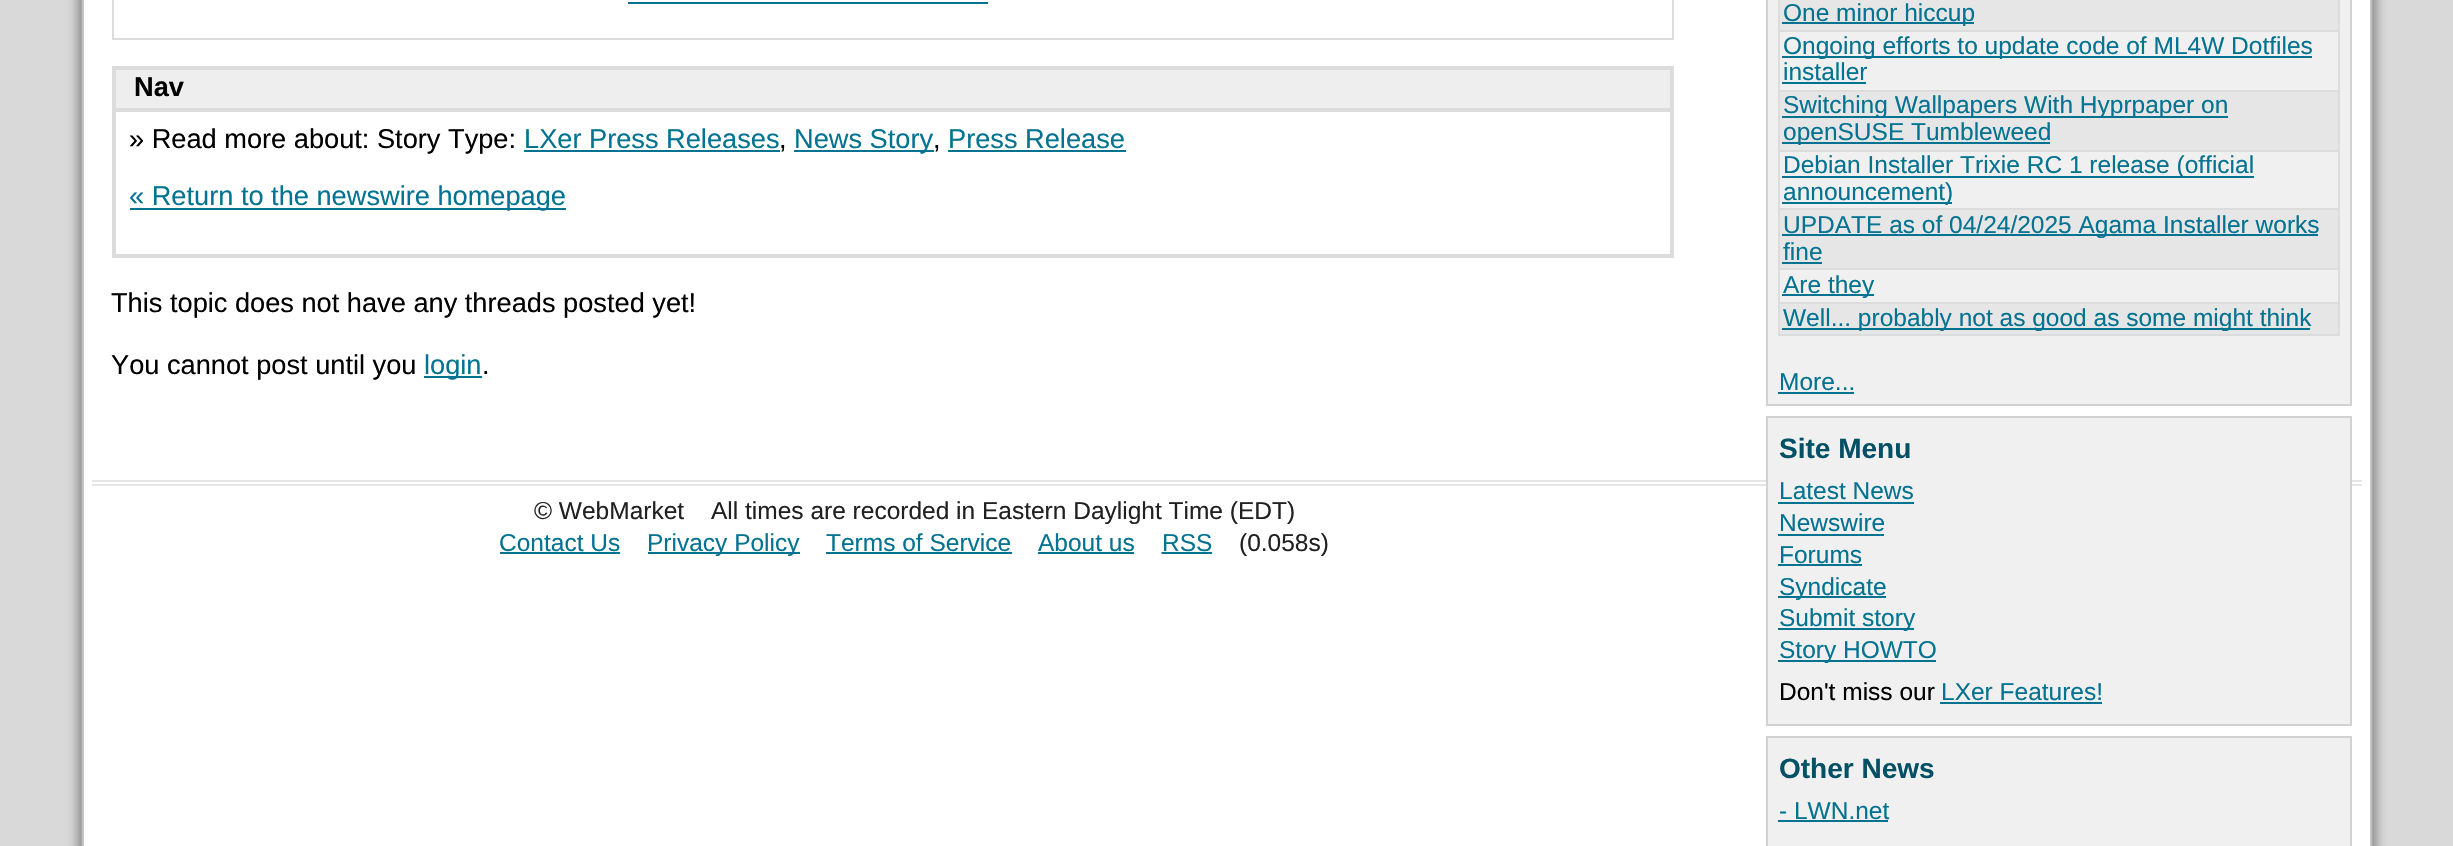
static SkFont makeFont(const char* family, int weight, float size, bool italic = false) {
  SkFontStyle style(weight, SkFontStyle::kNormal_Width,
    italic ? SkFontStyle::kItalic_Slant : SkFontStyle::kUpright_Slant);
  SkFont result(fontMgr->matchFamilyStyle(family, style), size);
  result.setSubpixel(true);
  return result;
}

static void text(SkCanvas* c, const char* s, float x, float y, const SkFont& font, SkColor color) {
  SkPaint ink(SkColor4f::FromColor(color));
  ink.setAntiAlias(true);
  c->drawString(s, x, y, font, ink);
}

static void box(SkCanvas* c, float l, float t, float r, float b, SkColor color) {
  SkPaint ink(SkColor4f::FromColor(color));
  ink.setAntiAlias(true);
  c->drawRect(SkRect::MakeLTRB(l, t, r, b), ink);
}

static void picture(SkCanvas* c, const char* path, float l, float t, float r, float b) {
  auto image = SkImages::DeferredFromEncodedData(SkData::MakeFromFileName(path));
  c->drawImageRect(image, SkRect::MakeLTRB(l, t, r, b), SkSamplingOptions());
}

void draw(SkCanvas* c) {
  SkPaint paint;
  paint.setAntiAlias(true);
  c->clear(0xffd9d9d9);
  box(c, 84, 0, 2370, 846, 0xffffffff);
  picture(c, "img_01.png", 62, 0, 84, 846);
  box(c, 1672, 0, 1674, 40, 0xffdcdcdc);
  box(c, 112, 38, 1674, 40, 0xffdcdcdc);
  box(c, 112, 0, 114, 40, 0xffdcdcdc);
  box(c, 628, 2, 988, 4, 0xff047391);
  box(c, 112, 66, 1674, 68, 0xffdcdcdc);
  box(c, 1672, 66, 1674, 258, 0xffdcdcdc);
  box(c, 112, 256, 1674, 258, 0xffdcdcdc);
  box(c, 112, 66, 114, 258, 0xffdcdcdc);
  box(c, 116, 70, 1670, 108, 0xffeeeeee);
  box(c, 114, 68, 1672, 70, 0xffdcdcdc);
  box(c, 1670, 68, 1672, 110, 0xffdcdcdc);
  box(c, 114, 108, 1672, 112, 0xffdcdcdc);
  box(c, 114, 68, 116, 110, 0xffdcdcdc);
  SkFont face1 = makeFont("Liberation Sans", 700, 27.2f);
  text(c, "Nav", 134, 96, face1, 0xff000000);
  box(c, 1670, 110, 1672, 256, 0xffdcdcdc);
  box(c, 114, 254, 1672, 256, 0xffdcdcdc);
  box(c, 114, 110, 116, 256, 0xffdcdcdc);
  SkFont face2 = makeFont("Liberation Sans", 400, 27.2f);
  text(c, "» Read more about: Story Type:", 129, 148, face2, 0xff000000);
  text(c, "LXer Press Releases", 524, 148, face2, 0xff047391);
  box(c, 524, 150, 780, 152, 0xff047391);
  text(c, ",", 779, 148, face2, 0xff000000);
  box(c, 794, 150, 934, 152, 0xff047391);
  text(c, "News Story", 794, 148, face2, 0xff047391);
  text(c, ",", 933, 148, face2, 0xff000000);
  text(c, "Press Release", 948, 148, face2, 0xff047391);
  box(c, 948, 150, 1126, 152, 0xff047391);
  box(c, 130, 208, 566, 210, 0xff047391);
  text(c, "« Return to the newswire homepage", 129, 205, face2, 0xff047391);
  text(c, "This topic does not have any threads posted yet!", 111, 312, face2, 0xff000000);
  text(c, "You cannot post until you", 111, 374, face2, 0xff000000);
  box(c, 424, 376, 482, 378, 0xff047391);
  text(c, "login", 424, 374, face2, 0xff047391);
  text(c, ".", 482, 374, face2, 0xff000000);
  paint.setColor(0xfff0f0f0);
  c->drawRect(SkRect::MakeLTRB(1767, -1, 2351, 405), paint);
  paint.setStyle(SkPaint::kStroke_Style);
  paint.setStrokeWidth(2);
  paint.setColor(0xffd2d2d2);
  c->drawRect(SkRect::MakeLTRB(1767, -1, 2351, 405), paint);
  box(c, 1780, 0, 2338, 30, 0xffe6e6e6);
  box(c, 1782, 22, 1974, 24, 0xff047391);
  SkFont face3 = makeFont("Liberation Sans", 400, 24.5f);
  text(c, "One minor hiccup", 1783, 21, face3, 0xff047391);
  box(c, 1778, 30, 2340, 32, 0xffdcdcdc);
  box(c, 1778, 90, 2340, 92, 0xffdcdcdc);
  box(c, 1778, 150, 2340, 152, 0xffdcdcdc);
  box(c, 1778, 208, 2340, 210, 0xffdcdcdc);
  box(c, 1778, 268, 2340, 270, 0xffdcdcdc);
  box(c, 1778, 302, 2340, 304, 0xffdcdcdc);
  box(c, 2338, 302, 2340, 336, 0xffdcdcdc);
  box(c, 2338, 268, 2340, 304, 0xffdcdcdc);
  box(c, 2338, 208, 2340, 270, 0xffdcdcdc);
  box(c, 2338, 150, 2340, 210, 0xffdcdcdc);
  box(c, 2338, 90, 2340, 152, 0xffdcdcdc);
  box(c, 2338, 0, 2340, 92, 0xffdcdcdc);
  box(c, 1778, 334, 2340, 336, 0xffdcdcdc);
  box(c, 1778, 302, 1780, 336, 0xffdcdcdc);
  box(c, 1778, 268, 1780, 304, 0xffdcdcdc);
  box(c, 1778, 208, 1780, 270, 0xffdcdcdc);
  box(c, 1778, 150, 1780, 210, 0xffdcdcdc);
  box(c, 1778, 90, 1780, 152, 0xffdcdcdc);
  box(c, 1778, 0, 1780, 92, 0xffdcdcdc);
  box(c, 1782, 56, 2312, 58, 0xff047391);
  text(c, "Ongoing efforts to update code of ML4W Dotfiles", 1783, 54, face3, 0xff047391);
  text(c, "installer", 1783, 80, face3, 0xff047391);
  box(c, 1782, 82, 1866, 84, 0xff047391);
  box(c, 1780, 92, 2338, 150, 0xffe6e6e6);
  box(c, 1782, 116, 2228, 118, 0xff047391);
  text(c, "Switching Wallpapers With Hyprpaper on", 1783, 113, face3, 0xff047391);
  box(c, 1782, 142, 2050, 144, 0xff047391);
  text(c, "openSUSE Tumbleweed", 1783, 140, face3, 0xff047391);
  box(c, 1782, 176, 2254, 178, 0xff047391);
  text(c, "Debian Installer Trixie RC 1 release (official", 1783, 173, face3, 0xff047391);
  box(c, 1782, 202, 1952, 204, 0xff047391);
  text(c, "announcement)", 1783, 200, face3, 0xff047391);
  box(c, 1780, 210, 2338, 268, 0xffe6e6e6);
  box(c, 1782, 234, 2318, 236, 0xff047391);
  text(c, "UPDATE as of 04/24/2025 Agama Installer works", 1783, 233, face3, 0xff047391);
  text(c, "fine", 1783, 260, face3, 0xff047391);
  box(c, 1782, 262, 1822, 264, 0xff047391);
  box(c, 1782, 294, 1874, 296, 0xff047391);
  text(c, "Are they", 1783, 293, face3, 0xff047391);
  box(c, 1780, 304, 2338, 334, 0xffe6e6e6);
  box(c, 1782, 328, 2310, 330, 0xff047391);
  text(c, "Well... probably not as good as some might think", 1783, 326, face3, 0xff047391);
  text(c, "More...", 1779, 390, face3, 0xff047391);
  box(c, 1778, 392, 1854, 394, 0xff047391);
  box(c, 92, 480, 2362, 482, 0xffe6e6e6);
  box(c, 92, 484, 2362, 486, 0xffe6e6e6);
  paint.setStyle(SkPaint::kFill_Style);
  paint.setColor(0xfff0f0f0);
  c->drawRect(SkRect::MakeLTRB(1767, 417, 2351, 725), paint);
  paint.setStyle(SkPaint::kStroke_Style);
  paint.setColor(0xffd2d2d2);
  c->drawRect(SkRect::MakeLTRB(1767, 417, 2351, 725), paint);
  SkFont face4 = makeFont("Liberation Sans", 700, 28);
  text(c, "Site Menu", 1779, 458, face4, 0xff045065);
  text(c, "Latest News", 1779, 499, face3, 0xff047391);
  box(c, 1778, 502, 1914, 504, 0xff047391);
  text(c, "Newswire", 1779, 531, face3, 0xff047391);
  box(c, 1778, 534, 1884, 536, 0xff047391);
  text(c, "Forums", 1779, 563, face3, 0xff047391);
  box(c, 1778, 564, 1862, 566, 0xff047391);
  box(c, 1778, 596, 1886, 598, 0xff047391);
  text(c, "Syndicate", 1779, 595, face3, 0xff047391);
  box(c, 1778, 628, 1914, 630, 0xff047391);
  text(c, "Submit story", 1779, 626, face3, 0xff047391);
  box(c, 1778, 660, 1936, 662, 0xff047391);
  text(c, "Story HOWTO", 1779, 658, face3, 0xff047391);
  text(c, "Don't miss our", 1779, 700, face3, 0xff000000);
  text(c, "LXer Features!", 1941, 700, face3, 0xff047391);
  box(c, 1940, 702, 2102, 704, 0xff047391);
  paint.setStyle(SkPaint::kFill_Style);
  paint.setColor(0xfff0f0f0);
  c->drawRect(SkRect::MakeLTRB(1767, 737, 2351, 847), paint);
  paint.setStyle(SkPaint::kStroke_Style);
  paint.setColor(0xffd2d2d2);
  c->drawRect(SkRect::MakeLTRB(1767, 737, 2351, 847), paint);
  text(c, "Other News", 1779, 778, face4, 0xff045065);
  text(c, "- LWN.net", 1779, 819, face3, 0xff047391);
  box(c, 1778, 820, 1888, 822, 0xff047391);
  picture(c, "img_02.png", 2370, 0, 2392, 846);
  text(c, "© WebMarket", 534, 519, face3, 0xff212121);
  text(c, "All times are recorded in Eastern Daylight Time (EDT)", 711, 519, face3, 0xff212121);
  text(c, "Contact Us", 499, 551, face3, 0xff047391);
  box(c, 500, 552, 620, 554, 0xff047391);
  box(c, 648, 552, 800, 554, 0xff047391);
  text(c, "Privacy Policy", 647, 551, face3, 0xff047391);
  text(c, "Terms of Service", 826, 551, face3, 0xff047391);
  box(c, 826, 552, 1012, 554, 0xff047391);
  text(c, "About us", 1038, 551, face3, 0xff047391);
  box(c, 1038, 552, 1134, 554, 0xff047391);
  text(c, "RSS", 1162, 551, face3, 0xff047391);
  paint.setColor(0xff047391);
  paint.setPathEffect(SkDashPathEffect::Make({{2, 2}}, 0));
  c->drawPath(SkPathBuilder().moveTo(1161.5f, 553).lineTo(1212, 553).detach(), paint);
  paint.setPathEffect(nullptr);
  box(c, 1162, 552, 1212, 554, 0xff047391);
  text(c, "(0.058s)", 1239, 551, face3, 0xff212121);
}
